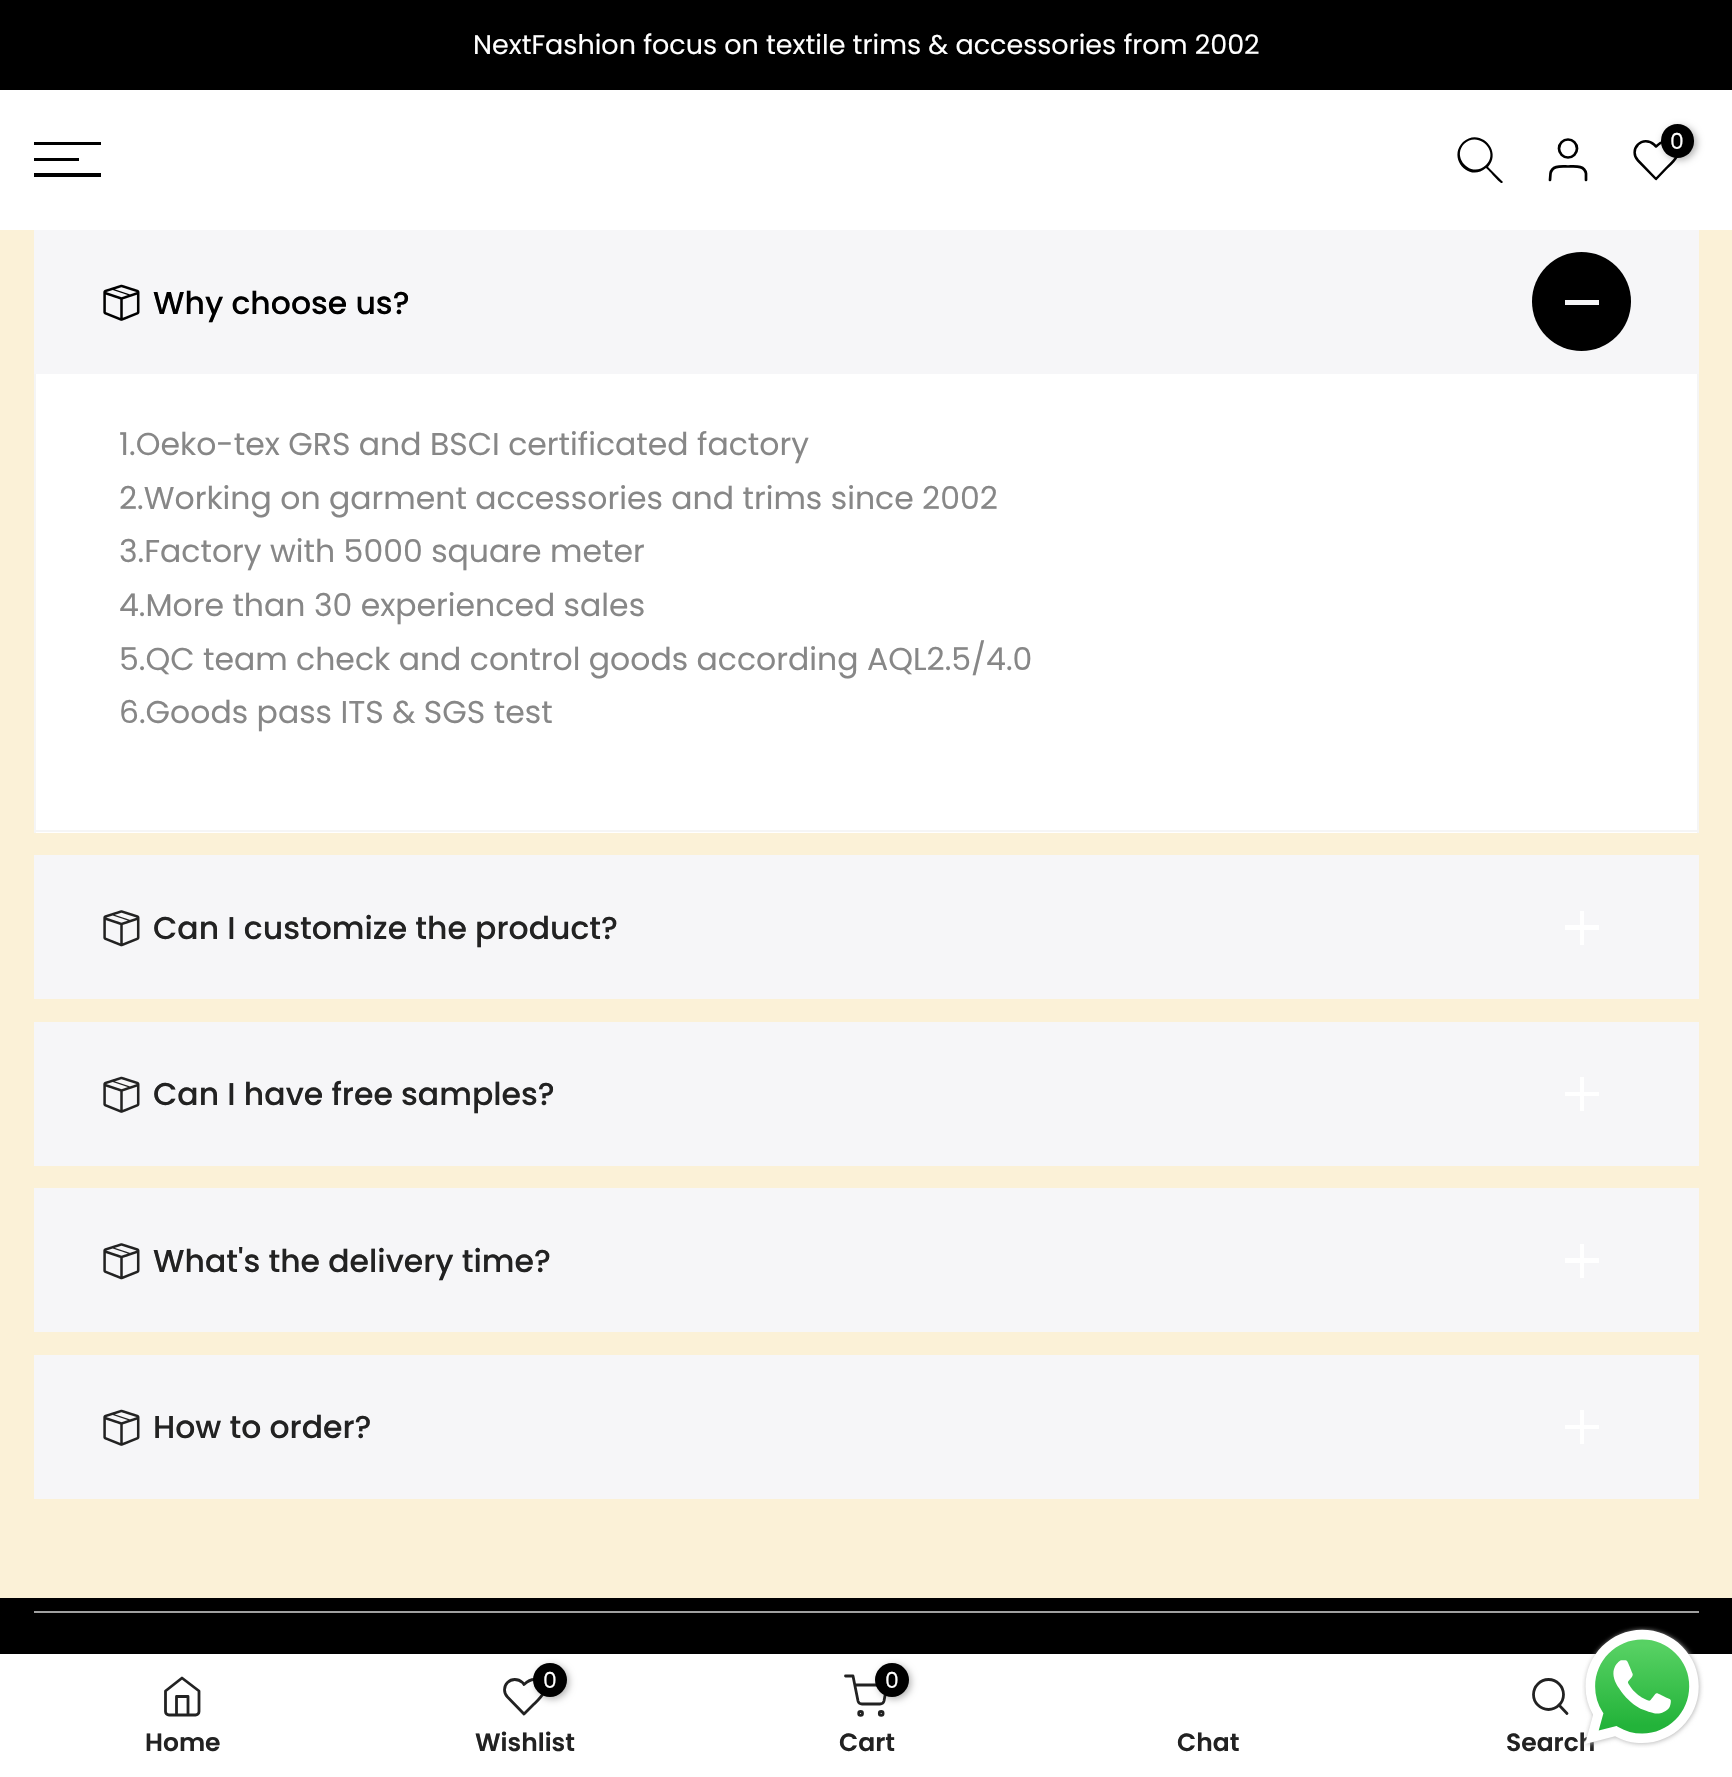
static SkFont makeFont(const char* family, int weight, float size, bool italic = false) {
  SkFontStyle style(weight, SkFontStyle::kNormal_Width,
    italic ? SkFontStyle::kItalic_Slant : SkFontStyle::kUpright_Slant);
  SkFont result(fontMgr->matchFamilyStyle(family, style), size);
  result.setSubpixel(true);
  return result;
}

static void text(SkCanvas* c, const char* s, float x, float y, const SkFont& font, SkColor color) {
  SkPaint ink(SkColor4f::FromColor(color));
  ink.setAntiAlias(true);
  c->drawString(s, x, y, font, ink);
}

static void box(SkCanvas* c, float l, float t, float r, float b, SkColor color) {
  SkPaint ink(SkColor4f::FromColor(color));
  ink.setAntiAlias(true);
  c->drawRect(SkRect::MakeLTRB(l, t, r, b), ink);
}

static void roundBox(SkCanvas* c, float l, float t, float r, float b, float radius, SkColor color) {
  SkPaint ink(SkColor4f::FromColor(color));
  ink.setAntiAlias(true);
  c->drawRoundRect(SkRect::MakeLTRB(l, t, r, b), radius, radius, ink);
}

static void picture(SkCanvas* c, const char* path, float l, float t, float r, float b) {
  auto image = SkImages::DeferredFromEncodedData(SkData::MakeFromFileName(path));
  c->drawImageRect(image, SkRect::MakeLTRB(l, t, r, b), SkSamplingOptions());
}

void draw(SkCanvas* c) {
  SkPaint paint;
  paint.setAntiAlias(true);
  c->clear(0xfffbf1d7);
  box(c, 0, 0, 1732, 90, 0xff000000);
  SkFont face1 = makeFont("Poppins", 400, 27);
  text(c, "NextFashion focus on textile trims & accessories from 2002", 473, 54, face1, 0xffffffff);
  box(c, 0, 90, 1732, 230, 0xffffffff);
  box(c, 34, 142, 101, 145, 0xff000000);
  box(c, 34, 158, 79, 161, 0xff000000);
  box(c, 34, 173, 101, 177, 0xff000000);
  paint.setColor(0xff000000);
  c->drawPath(SkPathBuilder(SkPathFillType::kEvenOdd).moveTo(1486, 165).cubicTo(1472, 179, 1451, 158, 1464, 144).cubicTo(1478, 130, 1500, 151, 1486, 165).close().moveTo(1486, 168).cubicTo(1469, 183, 1447, 158, 1463, 142).cubicTo(1479, 127, 1503, 150, 1488, 167).lineTo(1503, 182).lineTo(1502, 183).cubicTo(1500, 184, 1489, 170, 1486, 168).close().detach(), paint);
  paint.setStyle(SkPaint::kStroke_Style);
  paint.setStrokeWidth(2.7f);
  c->drawCircle(1568, 148.5f, 9, paint);
  paint.setStrokeCap(SkPaint::kRound_Cap);
  paint.setStrokeJoin(SkPaint::kRound_Join);
  c->drawPath(SkPathBuilder().moveTo(1586, 180).lineTo(1586, 173.5f).cubicTo(1584.5f, 165, 1575, 166.5f, 1568, 166.5f).cubicTo(1561.5f, 166.5f, 1552, 165, 1550.5f, 173.5f).lineTo(1550, 180).detach(), paint);
  paint.setStrokeWidth(2.5f);
  c->drawPath(SkPathBuilder().moveTo(1674, 144.5f).cubicTo(1668, 138.5f, 1661, 141.5f, 1656, 146.5f).lineTo(1654, 144.5f).cubicTo(1649.5f, 140, 1642, 140, 1638, 144.5f).cubicTo(1633.5f, 149, 1633.5f, 156, 1638, 160.5f).lineTo(1656, 179).lineTo(1666.5f, 168).cubicTo(1673, 162, 1683.5f, 153.5f, 1674, 144.5f).close().detach(), paint);
  paint.setStyle(SkPaint::kFill_Style);
  paint.setColor(0x4d000000);
  paint.setMaskFilter(SkMaskFilter::MakeBlur(kNormal_SkBlurStyle, 3.5f));
  c->drawRoundRect(SkRect::MakeLTRB(1663, 126, 1697, 160), 17, 17, paint);
  paint.setMaskFilter(nullptr);
  roundBox(c, 1661, 124, 1694, 158, 16.5f, 0xff000000);
  SkFont face2 = makeFont("Poppins", 400, 22);
  text(c, "0", 1670, 149, face2, 0xffffffff);
  box(c, 34, 230, 1699, 374, 0xfff6f6f8);
  picture(c, "img_01.png", 103, 284, 140, 321);
  SkFont face3 = makeFont("Poppins", 500, 31.5f);
  text(c, "Why choose us?", 153, 314, face3, 0xff000000);
  paint.setColor(0xff000000);
  c->drawCircle(1581.5f, 301.5f, 49.5f, paint);
  box(c, 1565, 300, 1599, 305, 0xfff6f6f8);
  box(c, 36, 374, 1697, 833, 0xffffffff);
  box(c, 1697, 374, 1699, 833, 0xfff5f5f5);
  box(c, 34, 830, 1699, 832, 0xfff5f5f5);
  box(c, 34, 374, 36, 833, 0xfff5f5f5);
  SkFont face4 = makeFont("Poppins", 400, 31.5f);
  text(c, "1.Oeko-tex GRS and BSCI certificated factory", 119, 455, face4, 0xff878787);
  text(c, "2.Working on garment accessories and trims since 2002", 119, 509, face4, 0xff878787);
  text(c, "3.Factory with 5000 square meter", 119, 562, face4, 0xff878787);
  text(c, "4.More than 30 experienced sales", 119, 616, face4, 0xff878787);
  text(c, "5.QC team check and control goods according AQL2.5/4.0", 119, 670, face4, 0xff878787);
  text(c, "6.Goods pass ITS & SGS test", 119, 723, face4, 0xff878787);
  box(c, 34, 855, 1699, 999, 0xfff6f6f8);
  picture(c, "img_02.png", 103, 910, 140, 947);
  text(c, "Can I customize the product?", 153, 939, face3, 0xff222222);
  box(c, 1580, 911, 1584, 945, 0xffffffff);
  box(c, 1565, 925, 1599, 930, 0xffffffff);
  box(c, 34, 1022, 1699, 1166, 0xfff6f6f8);
  picture(c, "img_03.png", 103, 1076, 140, 1113);
  text(c, "Can I have free samples?", 153, 1105, face3, 0xff222222);
  box(c, 1580, 1077, 1584, 1111, 0xffffffff);
  box(c, 1565, 1092, 1599, 1096, 0xffffffff);
  box(c, 34, 1188, 1699, 1332, 0xfff6f6f8);
  picture(c, "img_02.png", 103, 1243, 140, 1280);
  text(c, "What's the delivery time?", 153, 1272, face3, 0xff222222);
  box(c, 1580, 1244, 1584, 1278, 0xffffffff);
  box(c, 1565, 1258, 1599, 1263, 0xffffffff);
  box(c, 34, 1355, 1699, 1499, 0xfff6f6f8);
  picture(c, "img_03.png", 103, 1409, 140, 1446);
  text(c, "How to order?", 153, 1438, face3, 0xff222222);
  box(c, 1580, 1410, 1584, 1444, 0xffffffff);
  box(c, 1565, 1425, 1599, 1429, 0xffffffff);
  box(c, 0, 1598, 1732, 1654, 0xff000000);
  box(c, 34, 1611, 1699, 1613, 0xffa0a0a0);
  box(c, 0, 1654, 1732, 1777, 0xffffffff);
  paint.setStyle(SkPaint::kStroke_Style);
  paint.setStrokeWidth(2.8f);
  paint.setColor(0xff222222);
  c->drawPath(SkPathBuilder().moveTo(165.5f, 1691).lineTo(182, 1678).lineTo(199, 1691).lineTo(199, 1711.5f).cubicTo(199, 1713.5f, 197.5f, 1715, 195.5f, 1715).lineTo(169, 1715).cubicTo(167, 1715, 165.5f, 1713.5f, 165.5f, 1711.5f).close().moveTo(176.5f, 1715).lineTo(176.5f, 1696.5f).lineTo(188, 1696.5f).lineTo(188, 1715).detach(), paint);
  SkFont face5 = makeFont("Poppins", 600, 25);
  text(c, "Home", 145, 1751, face5, 0xff222222);
  c->drawPath(SkPathBuilder().moveTo(541, 1682.5f).cubicTo(535, 1677, 529, 1680, 524, 1684.5f).lineTo(522.5f, 1682.5f).cubicTo(518, 1678.5f, 511.5f, 1678.5f, 507.5f, 1682.5f).cubicTo(503.5f, 1686.5f, 503.5f, 1693, 507.5f, 1697).lineTo(524, 1714).lineTo(534, 1704).cubicTo(539.5f, 1698.5f, 549, 1691, 541, 1682.5f).close().detach(), paint);
  paint.setStyle(SkPaint::kFill_Style);
  paint.setColor(0x4d000000);
  paint.setMaskFilter(SkMaskFilter::MakeBlur(kNormal_SkBlurStyle, 3.5f));
  c->drawRoundRect(SkRect::MakeLTRB(536, 1665, 569, 1699), 16.5f, 16.5f, paint);
  paint.setMaskFilter(nullptr);
  paint.setColor(0xff000000);
  c->drawCircle(550, 1680, 17, paint);
  text(c, "0", 543, 1688, face2, 0xffffffff);
  text(c, "Wishlist", 475, 1751, face5, 0xff222222);
  paint.setStyle(SkPaint::kStroke_Style);
  paint.setColor(0xff222222);
  c->drawPath(SkPathBuilder().moveTo(845.5f, 1676).lineTo(853, 1676).lineTo(858, 1701).cubicTo(858.5f, 1703, 860, 1704, 862, 1704).lineTo(880, 1704).cubicTo(882, 1704, 883.5f, 1703, 884, 1701).lineTo(887, 1685).lineTo(855, 1685).detach(), paint);
  paint.setStrokeCap(SkPaint::kButt_Cap);
  paint.setStrokeJoin(SkPaint::kMiter_Join);
  c->drawCircle(881.2f, 1713.4f, 1.9f, paint);
  paint.setStyle(SkPaint::kFill_Style);
  paint.setColor(0x4d000000);
  paint.setMaskFilter(SkMaskFilter::MakeBlur(kNormal_SkBlurStyle, 3.5f));
  c->drawRoundRect(SkRect::MakeLTRB(878, 1665, 911, 1699), 16.5f, 16.5f, paint);
  paint.setMaskFilter(nullptr);
  paint.setColor(0xff000000);
  c->drawCircle(892, 1680, 17, paint);
  text(c, "0", 885, 1688, face2, 0xffffffff);
  paint.setStyle(SkPaint::kStroke_Style);
  paint.setColor(0xff222222);
  c->drawCircle(860.6f, 1713.4f, 1.9f, paint);
  text(c, "Cart", 839, 1751, face5, 0xff222222);
  text(c, "Chat", 1177, 1751, face5, 0xff222222);
  c->drawCircle(1548.5f, 1694.5f, 15, paint);
  paint.setStrokeCap(SkPaint::kRound_Cap);
  paint.setStrokeJoin(SkPaint::kRound_Join);
  c->drawPath(SkPathBuilder().moveTo(1567, 1713.5f).lineTo(1559, 1705).detach(), paint);
  text(c, "Search", 1506, 1751, face5, 0xff222222);
  picture(c, "img_04.png", 1582, 1626, 1704, 1748);
}
